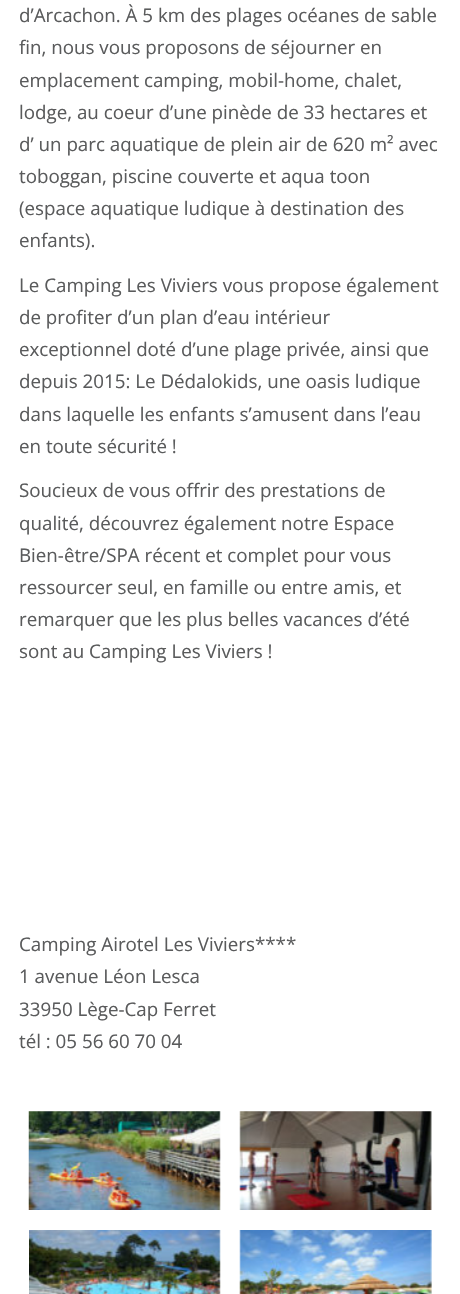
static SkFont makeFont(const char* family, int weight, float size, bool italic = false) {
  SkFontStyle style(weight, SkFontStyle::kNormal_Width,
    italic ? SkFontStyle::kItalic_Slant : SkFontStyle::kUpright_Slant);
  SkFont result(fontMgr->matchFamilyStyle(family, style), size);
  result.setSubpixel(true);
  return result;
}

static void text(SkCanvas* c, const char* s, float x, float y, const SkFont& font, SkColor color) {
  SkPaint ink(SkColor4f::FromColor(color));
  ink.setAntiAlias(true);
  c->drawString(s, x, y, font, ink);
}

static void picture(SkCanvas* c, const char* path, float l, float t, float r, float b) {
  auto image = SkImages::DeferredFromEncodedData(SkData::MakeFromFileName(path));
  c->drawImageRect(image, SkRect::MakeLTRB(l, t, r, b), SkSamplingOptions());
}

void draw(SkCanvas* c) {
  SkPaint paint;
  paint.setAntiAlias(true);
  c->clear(0xffffffff);
  SkFont face1 = makeFont("Open Sans", 400, 18.75f);
  text(c, "d’Arcachon. À 5 km des plages océanes de sable", 19, 22, face1, 0xff5a5b5c);
  text(c, "fin, nous vous proposons de séjourner en", 19, 54, face1, 0xff5a5b5c);
  text(c, "emplacement camping, mobil-home, chalet,", 19, 87, face1, 0xff5a5b5c);
  text(c, "lodge, au coeur d’une pinède de 33 hectares et", 19, 119, face1, 0xff5a5b5c);
  text(c, "d’ un parc aquatique de plein air de 620 m² avec", 19, 151, face1, 0xff5a5b5c);
  text(c, "toboggan, piscine couverte et aqua toon", 19, 183, face1, 0xff5a5b5c);
  text(c, "(espace aquatique ludique à destination des", 19, 215, face1, 0xff5a5b5c);
  text(c, "enfants).", 19, 247, face1, 0xff5a5b5c);
  text(c, "Le Camping Les Viviers vous propose également", 19, 292, face1, 0xff5a5b5c);
  text(c, "de profiter d’un plan d’eau intérieur", 19, 324, face1, 0xff5a5b5c);
  text(c, "exceptionnel doté d’une plage privée, ainsi que", 19, 356, face1, 0xff5a5b5c);
  text(c, "depuis 2015: Le Dédalokids, une oasis ludique", 19, 388, face1, 0xff5a5b5c);
  text(c, "dans laquelle les enfants s’amusent dans l’eau", 19, 421, face1, 0xff5a5b5c);
  text(c, "en toute sécurité !", 19, 453, face1, 0xff5a5b5c);
  text(c, "Soucieux de vous offrir des prestations de", 19, 497, face1, 0xff5a5b5c);
  text(c, "qualité, découvrez également notre Espace", 19, 530, face1, 0xff5a5b5c);
  text(c, "Bien-être/SPA récent et complet pour vous", 19, 562, face1, 0xff5a5b5c);
  text(c, "ressourcer seul, en famille ou entre amis, et", 19, 594, face1, 0xff5a5b5c);
  text(c, "remarquer que les plus belles vacances d’été", 19, 626, face1, 0xff5a5b5c);
  text(c, "sont au Camping Les Viviers !", 19, 658, face1, 0xff5a5b5c);
  text(c, "Camping Airotel Les Viviers****", 19, 951, face1, 0xff5a5b5c);
  text(c, "1 avenue Léon Lesca", 19, 983, face1, 0xff5a5b5c);
  text(c, "33950 Lège-Cap Ferret", 19, 1016, face1, 0xff5a5b5c);
  text(c, "tél : 05 56 60 70 04", 19, 1048, face1, 0xff5a5b5c);
  picture(c, "img_01.png", 28, 1111, 221, 1210);
  picture(c, "img_02.png", 239, 1111, 432, 1210);
  picture(c, "img_03.png", 29, 1230, 221, 1294);
  picture(c, "img_04.png", 239, 1230, 432, 1294);
}
